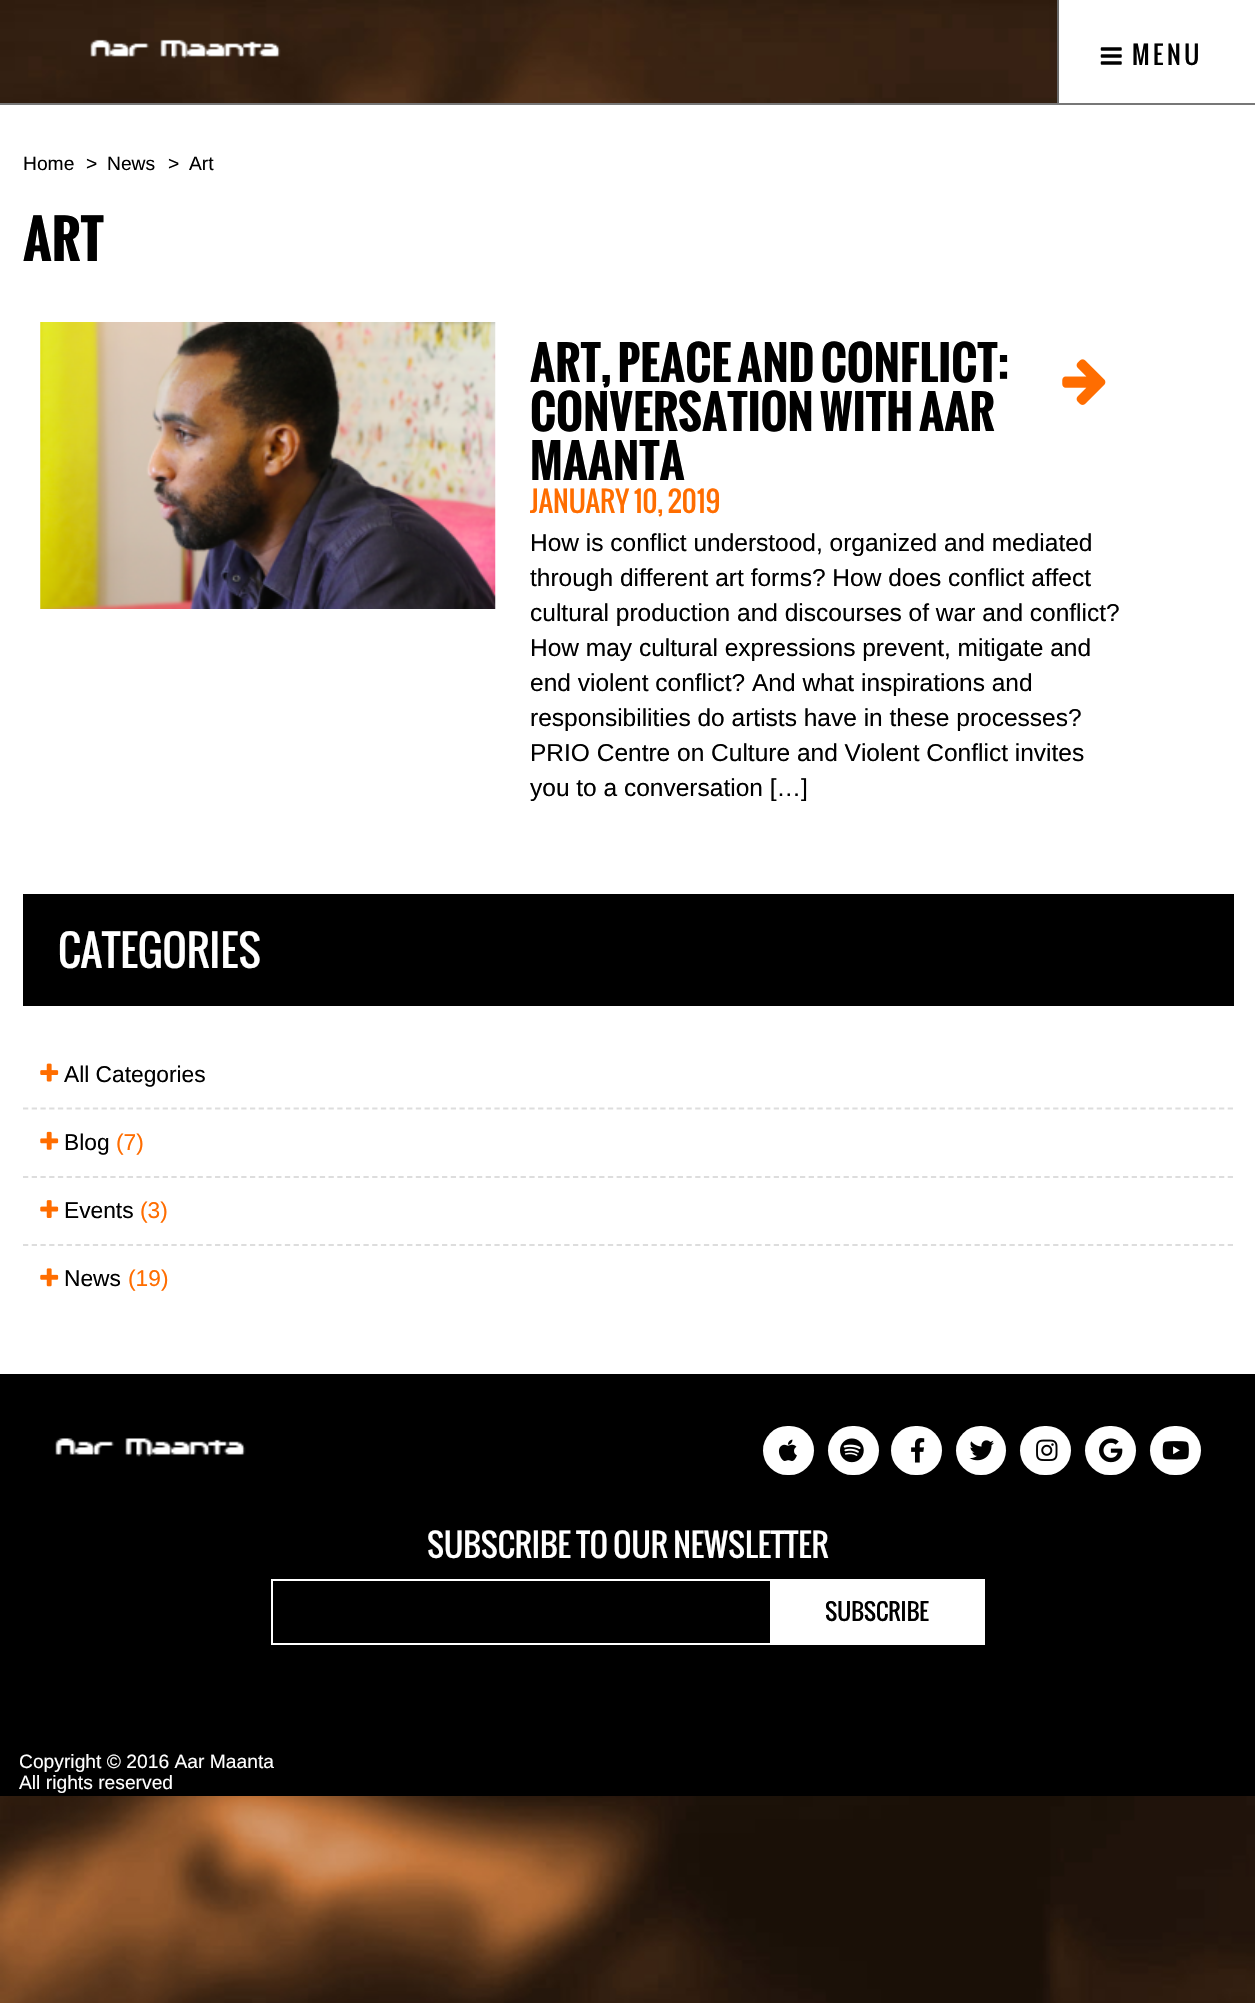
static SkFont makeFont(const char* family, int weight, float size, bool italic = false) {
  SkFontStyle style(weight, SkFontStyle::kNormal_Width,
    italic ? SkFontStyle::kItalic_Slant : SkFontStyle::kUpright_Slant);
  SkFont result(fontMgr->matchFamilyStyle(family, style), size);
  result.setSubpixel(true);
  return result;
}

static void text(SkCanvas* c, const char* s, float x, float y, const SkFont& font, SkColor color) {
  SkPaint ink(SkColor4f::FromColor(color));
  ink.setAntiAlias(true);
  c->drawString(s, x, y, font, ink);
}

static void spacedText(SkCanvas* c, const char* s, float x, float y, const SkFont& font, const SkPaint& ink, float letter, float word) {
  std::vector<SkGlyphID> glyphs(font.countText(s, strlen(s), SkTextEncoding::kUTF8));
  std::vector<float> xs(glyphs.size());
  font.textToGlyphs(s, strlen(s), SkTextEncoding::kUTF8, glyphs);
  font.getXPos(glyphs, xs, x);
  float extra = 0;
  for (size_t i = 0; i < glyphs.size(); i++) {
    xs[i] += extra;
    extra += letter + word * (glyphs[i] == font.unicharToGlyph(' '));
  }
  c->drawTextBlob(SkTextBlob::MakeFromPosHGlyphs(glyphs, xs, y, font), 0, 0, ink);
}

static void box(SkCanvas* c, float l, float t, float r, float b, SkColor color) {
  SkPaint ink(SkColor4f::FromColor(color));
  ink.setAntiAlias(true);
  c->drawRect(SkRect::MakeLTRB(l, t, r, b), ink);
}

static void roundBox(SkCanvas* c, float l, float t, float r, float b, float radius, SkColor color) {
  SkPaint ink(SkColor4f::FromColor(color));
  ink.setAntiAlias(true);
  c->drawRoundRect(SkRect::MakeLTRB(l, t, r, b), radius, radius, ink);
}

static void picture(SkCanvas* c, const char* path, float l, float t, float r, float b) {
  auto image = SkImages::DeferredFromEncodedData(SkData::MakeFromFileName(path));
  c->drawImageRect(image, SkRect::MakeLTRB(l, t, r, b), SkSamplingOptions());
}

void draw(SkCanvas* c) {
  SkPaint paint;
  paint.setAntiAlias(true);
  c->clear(0xffffffff);
  picture(c, "img_01.png", 0, 0, 1255, 2003);
  box(c, 0, 103, 1255, 105, 0xff777777);
  picture(c, "img_02.png", 90, 39, 281, 59);
  box(c, 1059, 0, 1255, 103, 0xffffffff);
  box(c, 1057, 0, 1059, 103, 0xff696969);
  picture(c, "img_03.png", 1100, 47, 1122, 65);
  SkFont face1 = makeFont("Oswald", 400, 24.5f);
  paint.setColor(0xff000000);
  spacedText(c, "MENU", 1132, 65, face1, paint, 3.5f, 0);
  box(c, 0, 105, 1255, 1374, 0xffffffff);
  SkFont face2 = makeFont("Liberation Sans", 400, 19.25f);
  text(c, "Home", 23, 170, face2, 0xff000000);
  text(c, ">", 86, 170, face2, 0xff000000);
  text(c, "News", 107, 170, face2, 0xff000000);
  text(c, ">", 168, 170, face2, 0xff000000);
  text(c, "Art", 189, 170, face2, 0xff000000);
  SkFont face3 = makeFont("Oswald", 700, 52);
  text(c, "ART", 23, 261, face3, 0xff000000);
  picture(c, "img_04.png", 40, 322, 496, 609);
  SkFont face4 = makeFont("Oswald", 700, 45.5f);
  text(c, "ART, PEACE AND CONFLICT:", 530, 382, face4, 0xff000000);
  text(c, "CONVERSATION WITH AAR", 530, 431, face4, 0xff000000);
  text(c, "MAANTA", 530, 480, face4, 0xff000000);
  picture(c, "img_05.png", 1062, 359, 1106, 405);
  SkFont face5 = makeFont("Oswald", 400, 28);
  text(c, "JANUARY 10, 2019", 530, 513, face5, 0xffff6d00);
  SkFont face6 = makeFont("Liberation Sans", 400, 24.5f);
  text(c, "How is conflict understood, organized and mediated", 530, 551, face6, 0xff000000);
  text(c, "through different art forms? How does conflict affect", 530, 586, face6, 0xff000000);
  text(c, "cultural production and discourses of war and conflict?", 530, 621, face6, 0xff000000);
  text(c, "How may cultural expressions prevent, mitigate and", 530, 656, face6, 0xff000000);
  text(c, "end violent conflict? And what inspirations and", 530, 691, face6, 0xff000000);
  text(c, "responsibilities do artists have in these processes?", 530, 726, face6, 0xff000000);
  text(c, "PRIO Centre on Culture and Violent Conflict invites", 530, 761, face6, 0xff000000);
  text(c, "you to a conversation […]", 530, 796, face6, 0xff000000);
  box(c, 23, 894, 1234, 1006, 0xff000000);
  SkFont face7 = makeFont("Oswald", 400, 42);
  text(c, "CATEGORIES", 58, 968, face7, 0xffffffff);
  paint.setStyle(SkPaint::kStroke_Style);
  paint.setStrokeWidth(1.8f);
  paint.setColor(0xffdddddd);
  paint.setPathEffect(SkDashPathEffect::Make({{5.25f, 3.48f}}, 0));
  c->drawPath(SkPathBuilder().moveTo(23, 1108.5f).lineTo(1234, 1108.5f).detach(), paint);
  paint.setPathEffect(nullptr);
  picture(c, "img_06.png", 40, 1063, 59, 1082);
  SkFont face8 = makeFont("Liberation Sans", 400, 22.75f);
  text(c, "All Categories", 64, 1082, face8, 0xff000000);
  paint.setPathEffect(SkDashPathEffect::Make({{5.25f, 3.48f}}, 0));
  c->drawPath(SkPathBuilder().moveTo(23, 1177).lineTo(1234, 1177).detach(), paint);
  paint.setPathEffect(nullptr);
  picture(c, "img_07.png", 40, 1131, 59, 1150);
  text(c, "Blog", 64, 1150, face8, 0xff000000);
  text(c, "(7)", 116, 1150, face8, 0xffff6d00);
  paint.setPathEffect(SkDashPathEffect::Make({{5.25f, 3.48f}}, 0));
  c->drawPath(SkPathBuilder().moveTo(23, 1245).lineTo(1234, 1245).detach(), paint);
  paint.setPathEffect(nullptr);
  picture(c, "img_08.png", 40, 1200, 59, 1218);
  text(c, "Events", 64, 1218, face8, 0xff000000);
  text(c, "(3)", 140, 1218, face8, 0xffff6d00);
  picture(c, "img_09.png", 40, 1268, 59, 1287);
  text(c, "News", 64, 1286, face8, 0xff000000);
  text(c, "(19)", 128, 1286, face8, 0xffff6d00);
  box(c, 0, 1374, 1255, 1796, 0xff000000);
  picture(c, "img_10.png", 55, 1438, 246, 1457);
  roundBox(c, 763, 1426, 814, 1475, 24.5f, 0xffffffff);
  picture(c, "img_11.png", 778, 1439, 797, 1461);
  roundBox(c, 828, 1426, 879, 1475, 24.5f, 0xffffffff);
  picture(c, "img_12.png", 840, 1438, 864, 1463);
  roundBox(c, 891, 1426, 942, 1475, 24.5f, 0xffffffff);
  picture(c, "img_13.png", 911, 1438, 925, 1463);
  roundBox(c, 956, 1426, 1006, 1475, 24.5f, 0xffffffff);
  picture(c, "img_14.png", 969, 1440, 994, 1461);
  roundBox(c, 1020, 1426, 1071, 1475, 24.5f, 0xffffffff);
  picture(c, "img_15.png", 1036, 1439, 1058, 1461);
  roundBox(c, 1085, 1426, 1136, 1475, 24.5f, 0xffffffff);
  picture(c, "img_16.png", 1099, 1438, 1123, 1463);
  roundBox(c, 1150, 1426, 1201, 1475, 24.5f, 0xffffffff);
  picture(c, "img_17.png", 1162, 1441, 1189, 1460);
  SkFont face9 = makeFont("Oswald", 400, 31.5f);
  text(c, "SUBSCRIBE TO OUR NEWSLETTER", 427, 1558, face9, 0xffffffff);
  paint.setStrokeWidth(2);
  paint.setColor(0xffffffff);
  c->drawRect(SkRect::MakeLTRB(272, 1580, 984, 1644), paint);
  box(c, 770, 1581, 983, 1643, 0xffffffff);
  SkFont face10 = makeFont("Oswald", 400, 22.75f);
  text(c, "SUBSCRIBE", 825, 1621, face10, 0xff000000);
  text(c, "Copyright © 2016 Aar Maanta", 19, 1768, face2, 0xffffffff);
  text(c, "All rights reserved", 19, 1789, face2, 0xffffffff);
}
